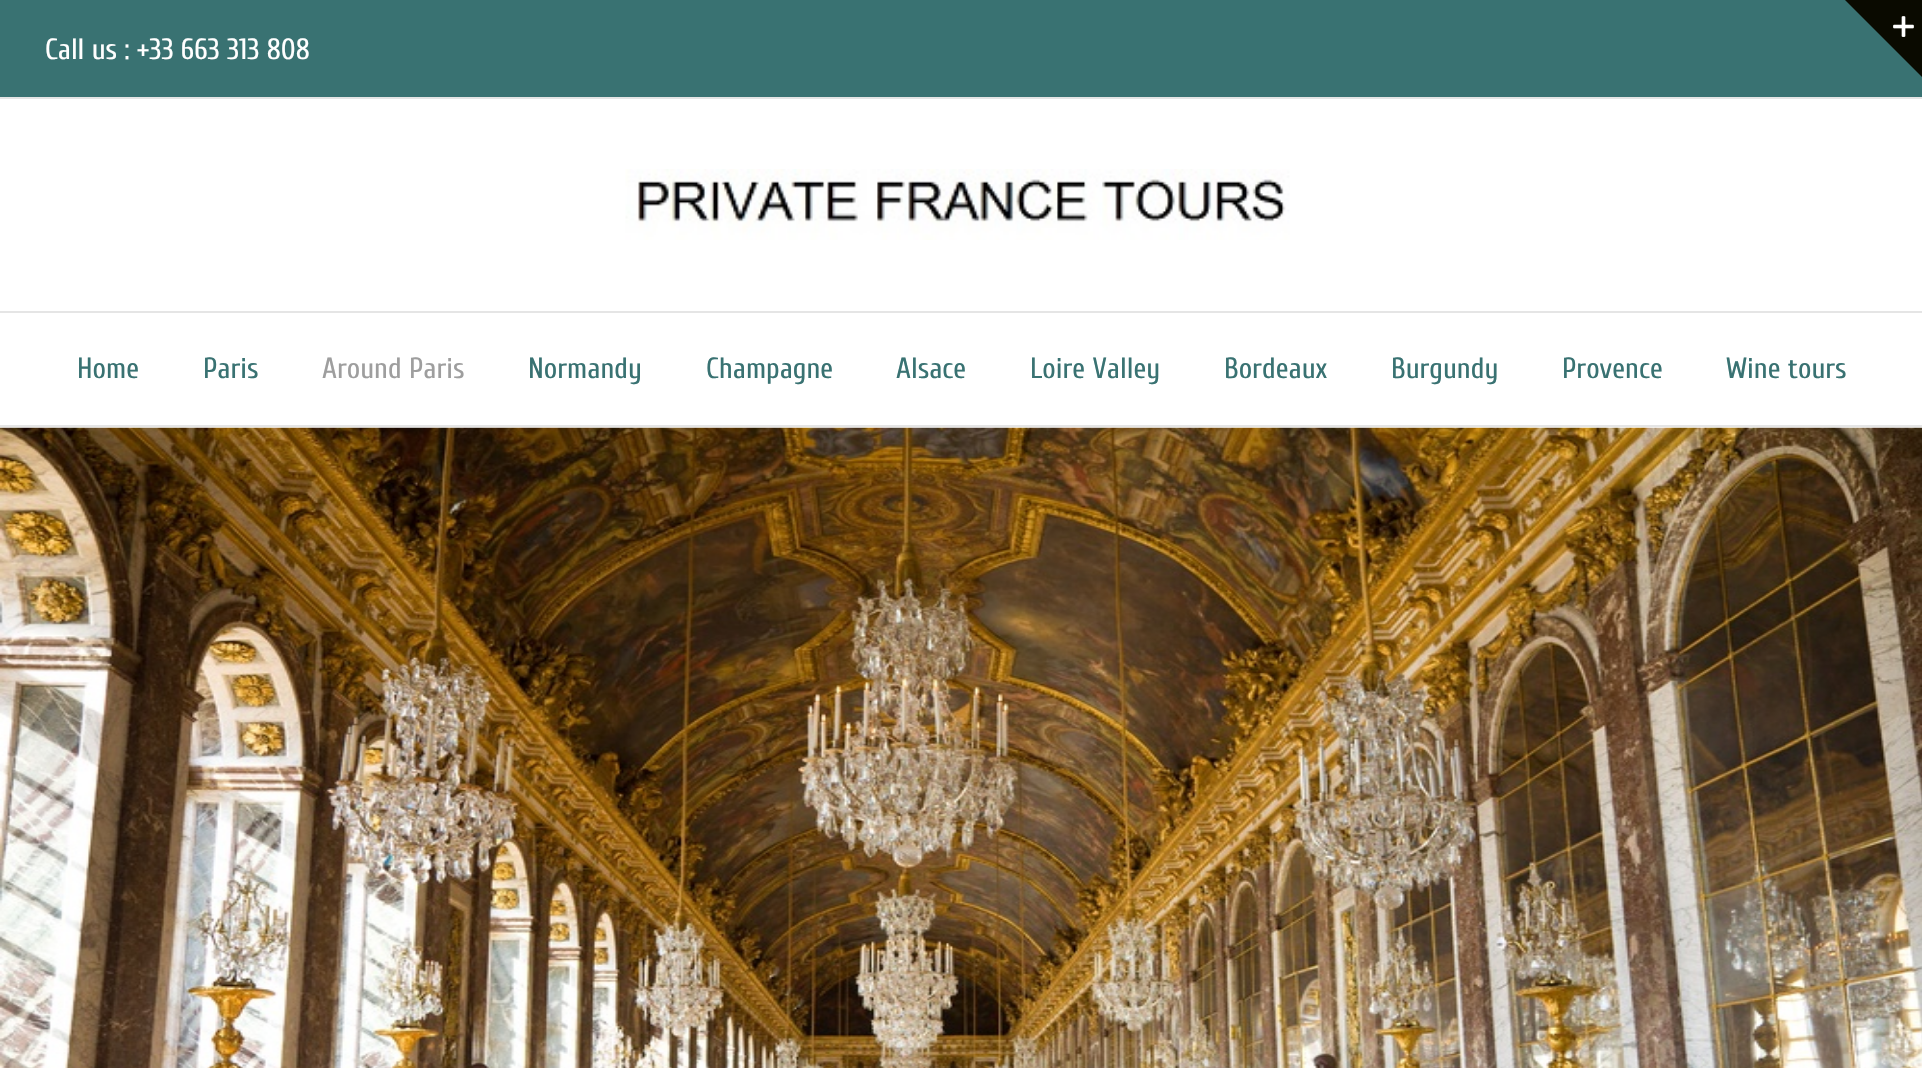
static SkFont makeFont(const char* family, int weight, float size, bool italic = false) {
  SkFontStyle style(weight, SkFontStyle::kNormal_Width,
    italic ? SkFontStyle::kItalic_Slant : SkFontStyle::kUpright_Slant);
  SkFont result(fontMgr->matchFamilyStyle(family, style), size);
  result.setSubpixel(true);
  return result;
}

static void text(SkCanvas* c, const char* s, float x, float y, const SkFont& font, SkColor color) {
  SkPaint ink(SkColor4f::FromColor(color));
  ink.setAntiAlias(true);
  c->drawString(s, x, y, font, ink);
}

static void box(SkCanvas* c, float l, float t, float r, float b, SkColor color) {
  SkPaint ink(SkColor4f::FromColor(color));
  ink.setAntiAlias(true);
  c->drawRect(SkRect::MakeLTRB(l, t, r, b), ink);
}

static void picture(SkCanvas* c, const char* path, float l, float t, float r, float b) {
  auto image = SkImages::DeferredFromEncodedData(SkData::MakeFromFileName(path));
  c->drawImageRect(image, SkRect::MakeLTRB(l, t, r, b), SkSamplingOptions());
}

void draw(SkCanvas* c) {
  SkPaint paint;
  paint.setAntiAlias(true);
  c->clear(0xffffffff);
  box(c, 0, 0, 1922, 97, 0xff397272);
  box(c, 0, 97, 1922, 99, 0xffe5e5e5);
  SkFont face1 = makeFont("Cuprum", 400, 29.25f);
  text(c, "Call us : +33 663 313 808", 45, 59, face1, 0xffffffff);
  box(c, 0, 311, 1922, 313, 0xffe5e5e5);
  picture(c, "img_01.png", 625, 169, 1290, 240);
  box(c, 0, 425, 1922, 427, 0xffe5e5e5);
  text(c, "Home", 77, 378, face1, 0xff397272);
  text(c, "Paris", 203, 378, face1, 0xff397272);
  text(c, "Around Paris", 322, 378, face1, 0xff9e9e9e);
  text(c, "Normandy", 528, 378, face1, 0xff397272);
  text(c, "Champagne", 706, 378, face1, 0xff397272);
  text(c, "Alsace", 896, 378, face1, 0xff397272);
  text(c, "Loire Valley", 1030, 378, face1, 0xff397272);
  text(c, "Bordeaux", 1224, 378, face1, 0xff397272);
  text(c, "Burgundy", 1391, 378, face1, 0xff397272);
  text(c, "Provence", 1562, 378, face1, 0xff397272);
  text(c, "Wine tours", 1726, 378, face1, 0xff397272);
  paint.setColor(0xff0a0a00);
  c->drawPath(SkPathBuilder().moveTo(1845, 0).lineTo(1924, 0).lineTo(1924, 79).close().detach(), paint);
  picture(c, "img_02.png", 1893, 16, 1914, 37);
  picture(c, "img_03.png", 0, 427, 1922, 1068);
}
